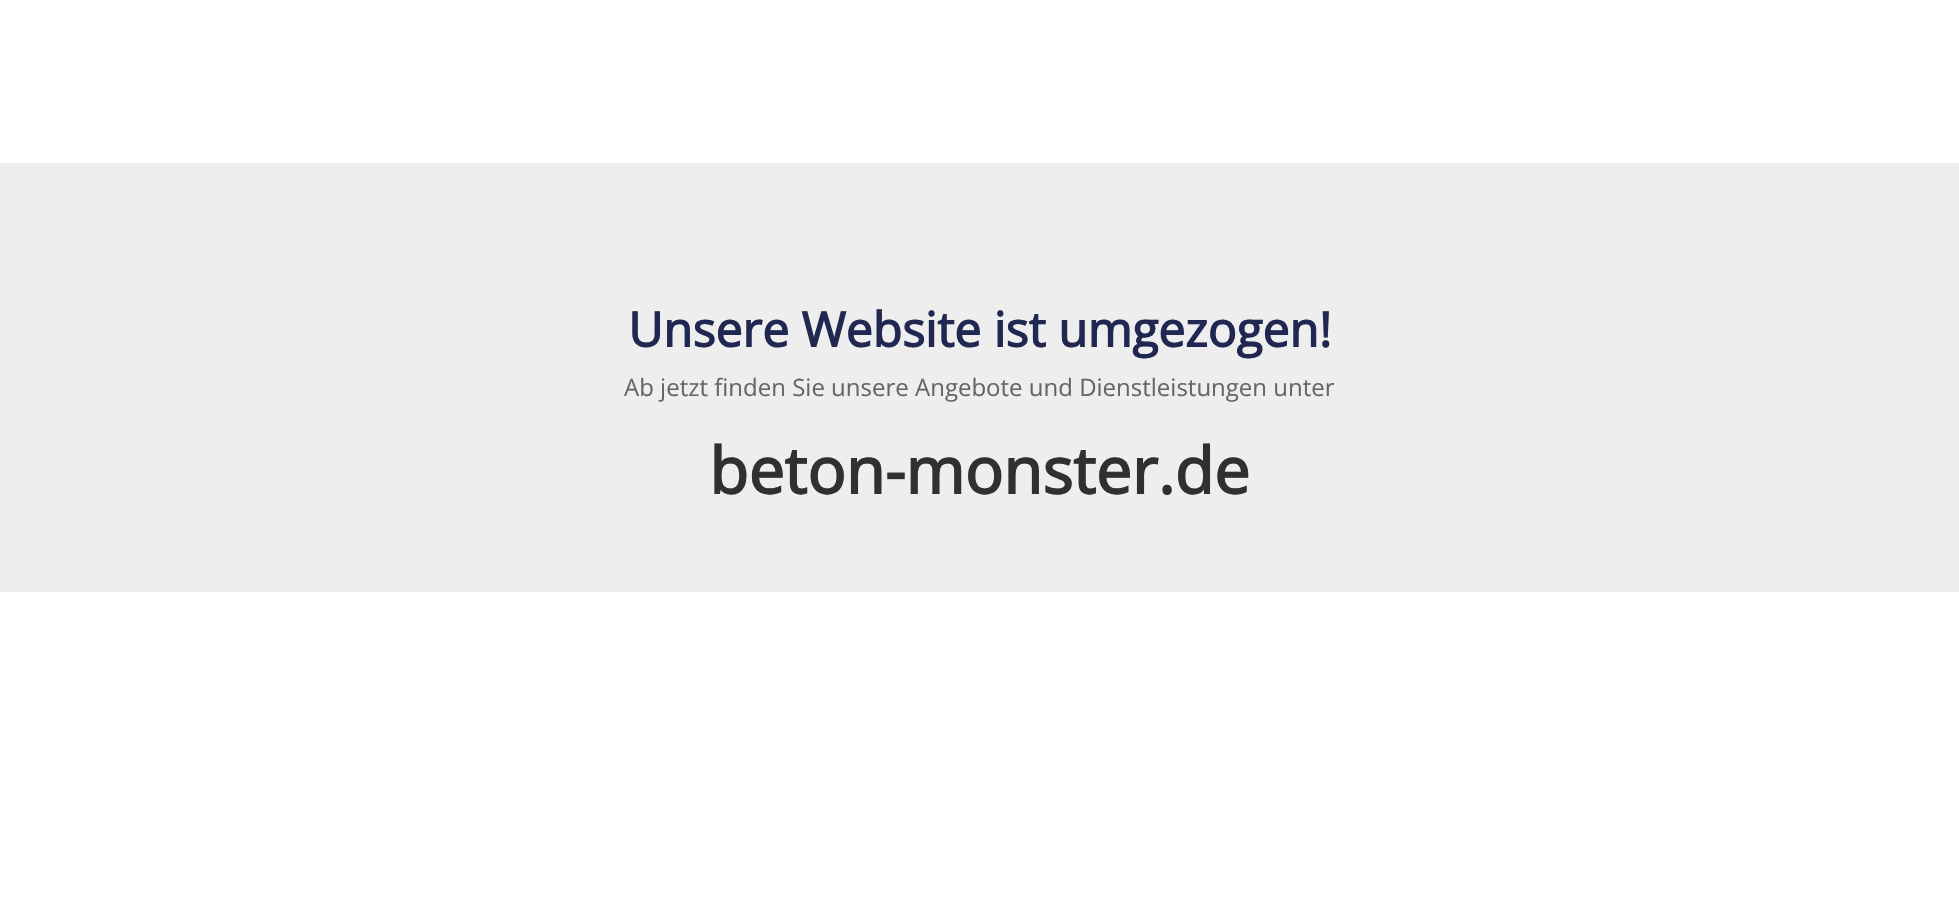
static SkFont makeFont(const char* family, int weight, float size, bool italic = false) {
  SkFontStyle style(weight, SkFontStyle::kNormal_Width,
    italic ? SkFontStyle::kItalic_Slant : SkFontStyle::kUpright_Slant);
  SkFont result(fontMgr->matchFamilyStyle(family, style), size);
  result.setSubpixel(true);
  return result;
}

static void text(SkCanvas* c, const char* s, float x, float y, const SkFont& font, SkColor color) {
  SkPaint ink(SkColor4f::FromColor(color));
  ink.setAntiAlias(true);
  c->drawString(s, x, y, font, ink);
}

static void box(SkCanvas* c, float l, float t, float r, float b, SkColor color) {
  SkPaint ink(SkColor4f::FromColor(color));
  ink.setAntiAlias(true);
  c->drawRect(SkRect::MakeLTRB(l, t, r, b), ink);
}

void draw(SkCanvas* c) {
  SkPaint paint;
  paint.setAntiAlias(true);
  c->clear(0xffffffff);
  box(c, 0, 163, 1959, 592, 0xffeeeeee);
  SkFont face1 = makeFont("Open Sans", 700, 48);
  text(c, "Unsere Website ist umgezogen!", 628, 347, face1, 0xff202851);
  SkFont face2 = makeFont("Open Sans", 400, 24);
  text(c, "Ab jetzt finden Sie unsere Angebote und Dienstleistungen unter", 624, 396, face2, 0xff666666);
  SkFont face3 = makeFont("Open Sans", 700, 64);
  text(c, "beton-monster.de", 709, 494, face3, 0xff303030);
}
